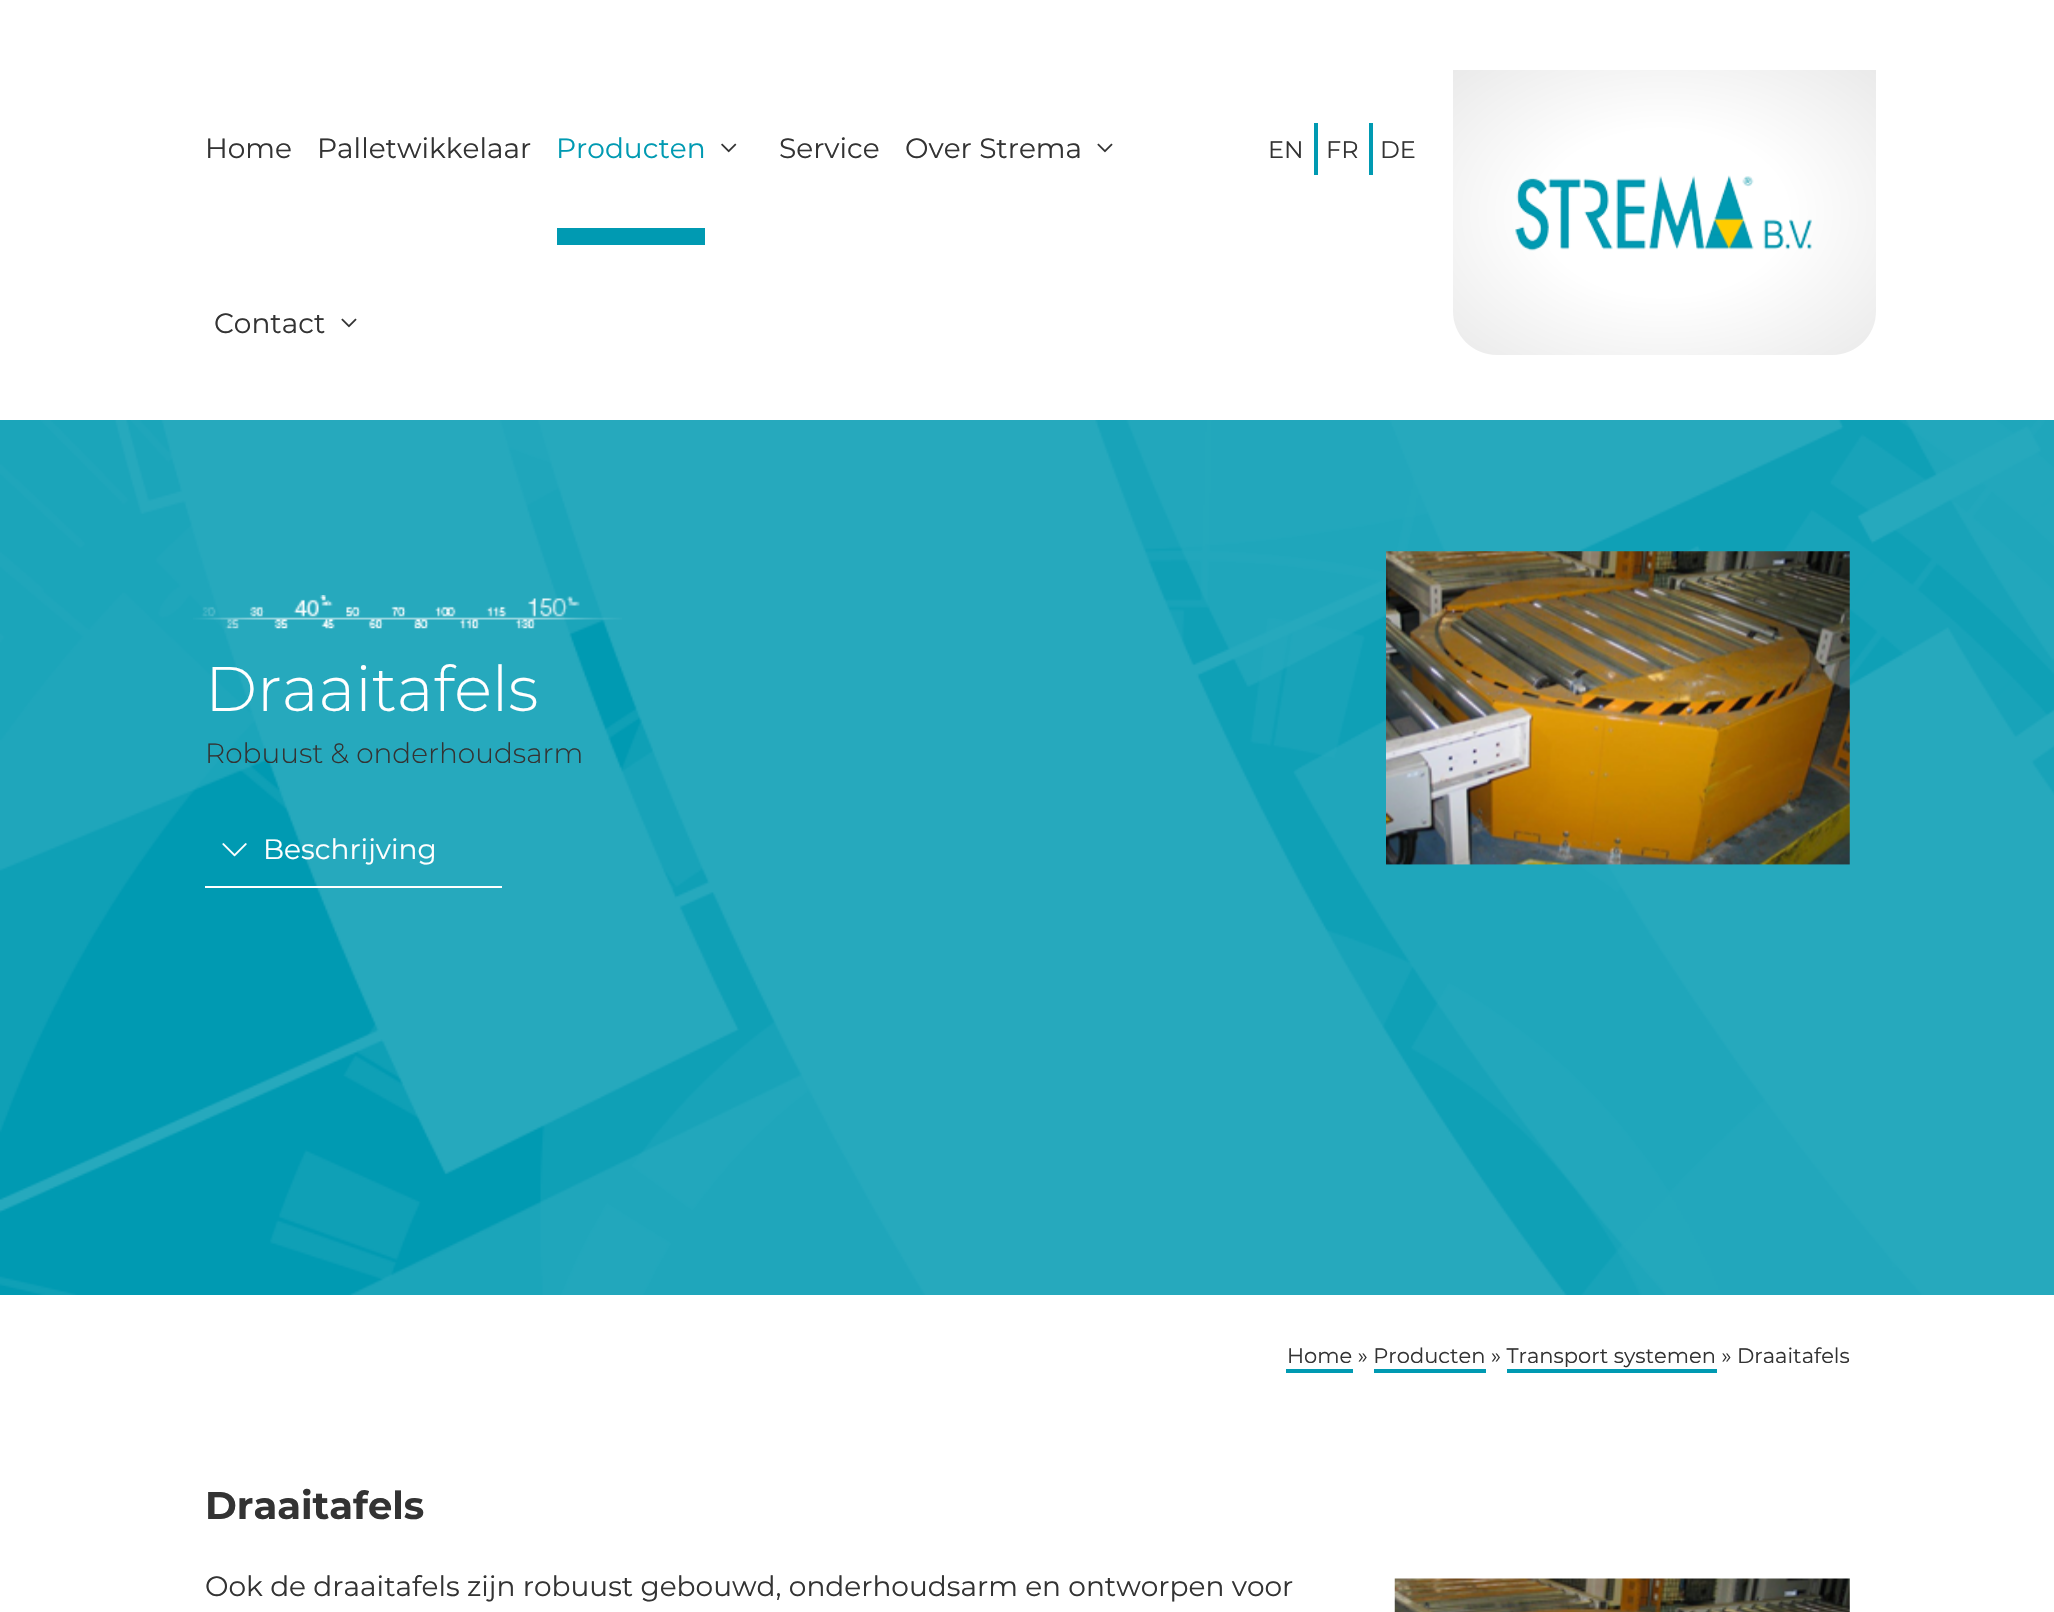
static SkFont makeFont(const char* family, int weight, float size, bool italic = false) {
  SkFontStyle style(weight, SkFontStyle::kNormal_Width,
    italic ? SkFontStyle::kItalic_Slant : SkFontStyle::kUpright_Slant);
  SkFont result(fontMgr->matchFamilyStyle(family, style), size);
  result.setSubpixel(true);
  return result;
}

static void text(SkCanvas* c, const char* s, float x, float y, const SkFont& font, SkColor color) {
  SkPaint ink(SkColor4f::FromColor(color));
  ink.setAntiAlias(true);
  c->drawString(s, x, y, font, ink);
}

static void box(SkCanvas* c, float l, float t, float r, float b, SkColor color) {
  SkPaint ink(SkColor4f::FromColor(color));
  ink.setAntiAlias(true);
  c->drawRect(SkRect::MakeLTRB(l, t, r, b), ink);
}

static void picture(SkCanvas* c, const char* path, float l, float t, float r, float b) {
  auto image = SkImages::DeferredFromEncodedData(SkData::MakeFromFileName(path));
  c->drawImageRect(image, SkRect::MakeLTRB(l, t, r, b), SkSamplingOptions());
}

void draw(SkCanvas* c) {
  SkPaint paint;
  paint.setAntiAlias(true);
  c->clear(0xffffffff);
  SkFont face1 = makeFont("Montserrat", 400, 28);
  text(c, "Home", 205, 158, face1, 0xff333333);
  text(c, "Palletwikkelaar", 317, 158, face1, 0xff333333);
  box(c, 557, 228, 705, 245, 0xff009ab2);
  text(c, "Producten", 556, 158, face1, 0xff009ab2);
  picture(c, "img_01.png", 721, 143, 737, 153);
  text(c, "Service", 779, 158, face1, 0xff333333);
  text(c, "Over Strema", 905, 158, face1, 0xff333333);
  picture(c, "img_02.png", 1097, 143, 1113, 153);
  text(c, "Contact", 214, 333, face1, 0xff333333);
  picture(c, "img_02.png", 341, 318, 357, 328);
  SkFont face2 = makeFont("Montserrat", 400, 24);
  text(c, "EN", 1268, 158, face2, 0xff333333);
  box(c, 1314, 123, 1318, 175, 0xff009ab2);
  text(c, "FR", 1326, 158, face2, 0xff333333);
  box(c, 1369, 123, 1373, 175, 0xff009ab2);
  text(c, "DE", 1380, 158, face2, 0xff333333);
  {
    const SkColor colors[] = {0xffffffff, 0xffeaeaea};
    const float stops[] = {0.41f, 1};
    SkMatrix m = SkMatrix::Translate(1664, 213).preScale(299, 202);
    paint.setShader(SkGradientShader::MakeRadial({0, 0}, 1, colors, stops, 2, SkTileMode::kClamp, 0, &m));
    paint.setAlpha(255);
  }
  c->drawPath(SkPathBuilder().moveTo(1453, 70).lineTo(1876, 70).lineTo(1876, 311).cubicTo(1876, 335.5f, 1856.5f, 355, 1832, 355).lineTo(1497, 355).cubicTo(1472.5f, 355, 1453, 335.5f, 1453, 311).close().detach(), paint);
  picture(c, "img_03.png", 1515, 175, 1812, 251);
  box(c, 0, 420, 2054, 1295, 0xff009ab2);
  picture(c, "img_04.png", 0, 420, 2054, 1295);
  picture(c, "img_05.png", 193, 595, 622, 629);
  SkFont face3 = makeFont("Montserrat", 300, 63);
  text(c, "Draaitafels", 205, 711, face3, 0xffffffff);
  SkFont face4 = makeFont("Montserrat", 300, 28);
  text(c, "Robuust & onderhoudsarm", 205, 763, face4, 0xff333333);
  box(c, 205, 886, 502, 888, 0xffffffff);
  picture(c, "img_06.png", 222, 843, 247, 857);
  text(c, "Beschrijving", 263, 859, face1, 0xffffffff);
  picture(c, "img_07.png", 1386, 551, 1850, 865);
  SkFont face5 = makeFont("Montserrat", 400, 21);
  text(c, "Home » Producten » Transport systemen » Draaitafels", 1287, 1363, face5, 0xff333333);
  box(c, 1286, 1369, 1353, 1373, 0xff009ab2);
  box(c, 1374, 1369, 1486, 1373, 0xff009ab2);
  box(c, 1507, 1369, 1717, 1373, 0xff009ab2);
  SkFont face6 = makeFont("Montserrat", 700, 38.5f);
  text(c, "Draaitafels", 205, 1519, face6, 0xff333333);
  text(c, "Ook de draaitafels zijn robuust gebouwd, onderhoudsarm en ontworpen voor", 205, 1596, face1, 0xff333333);
  picture(c, "img_08.png", 1394, 1578, 1850, 1612);
}
